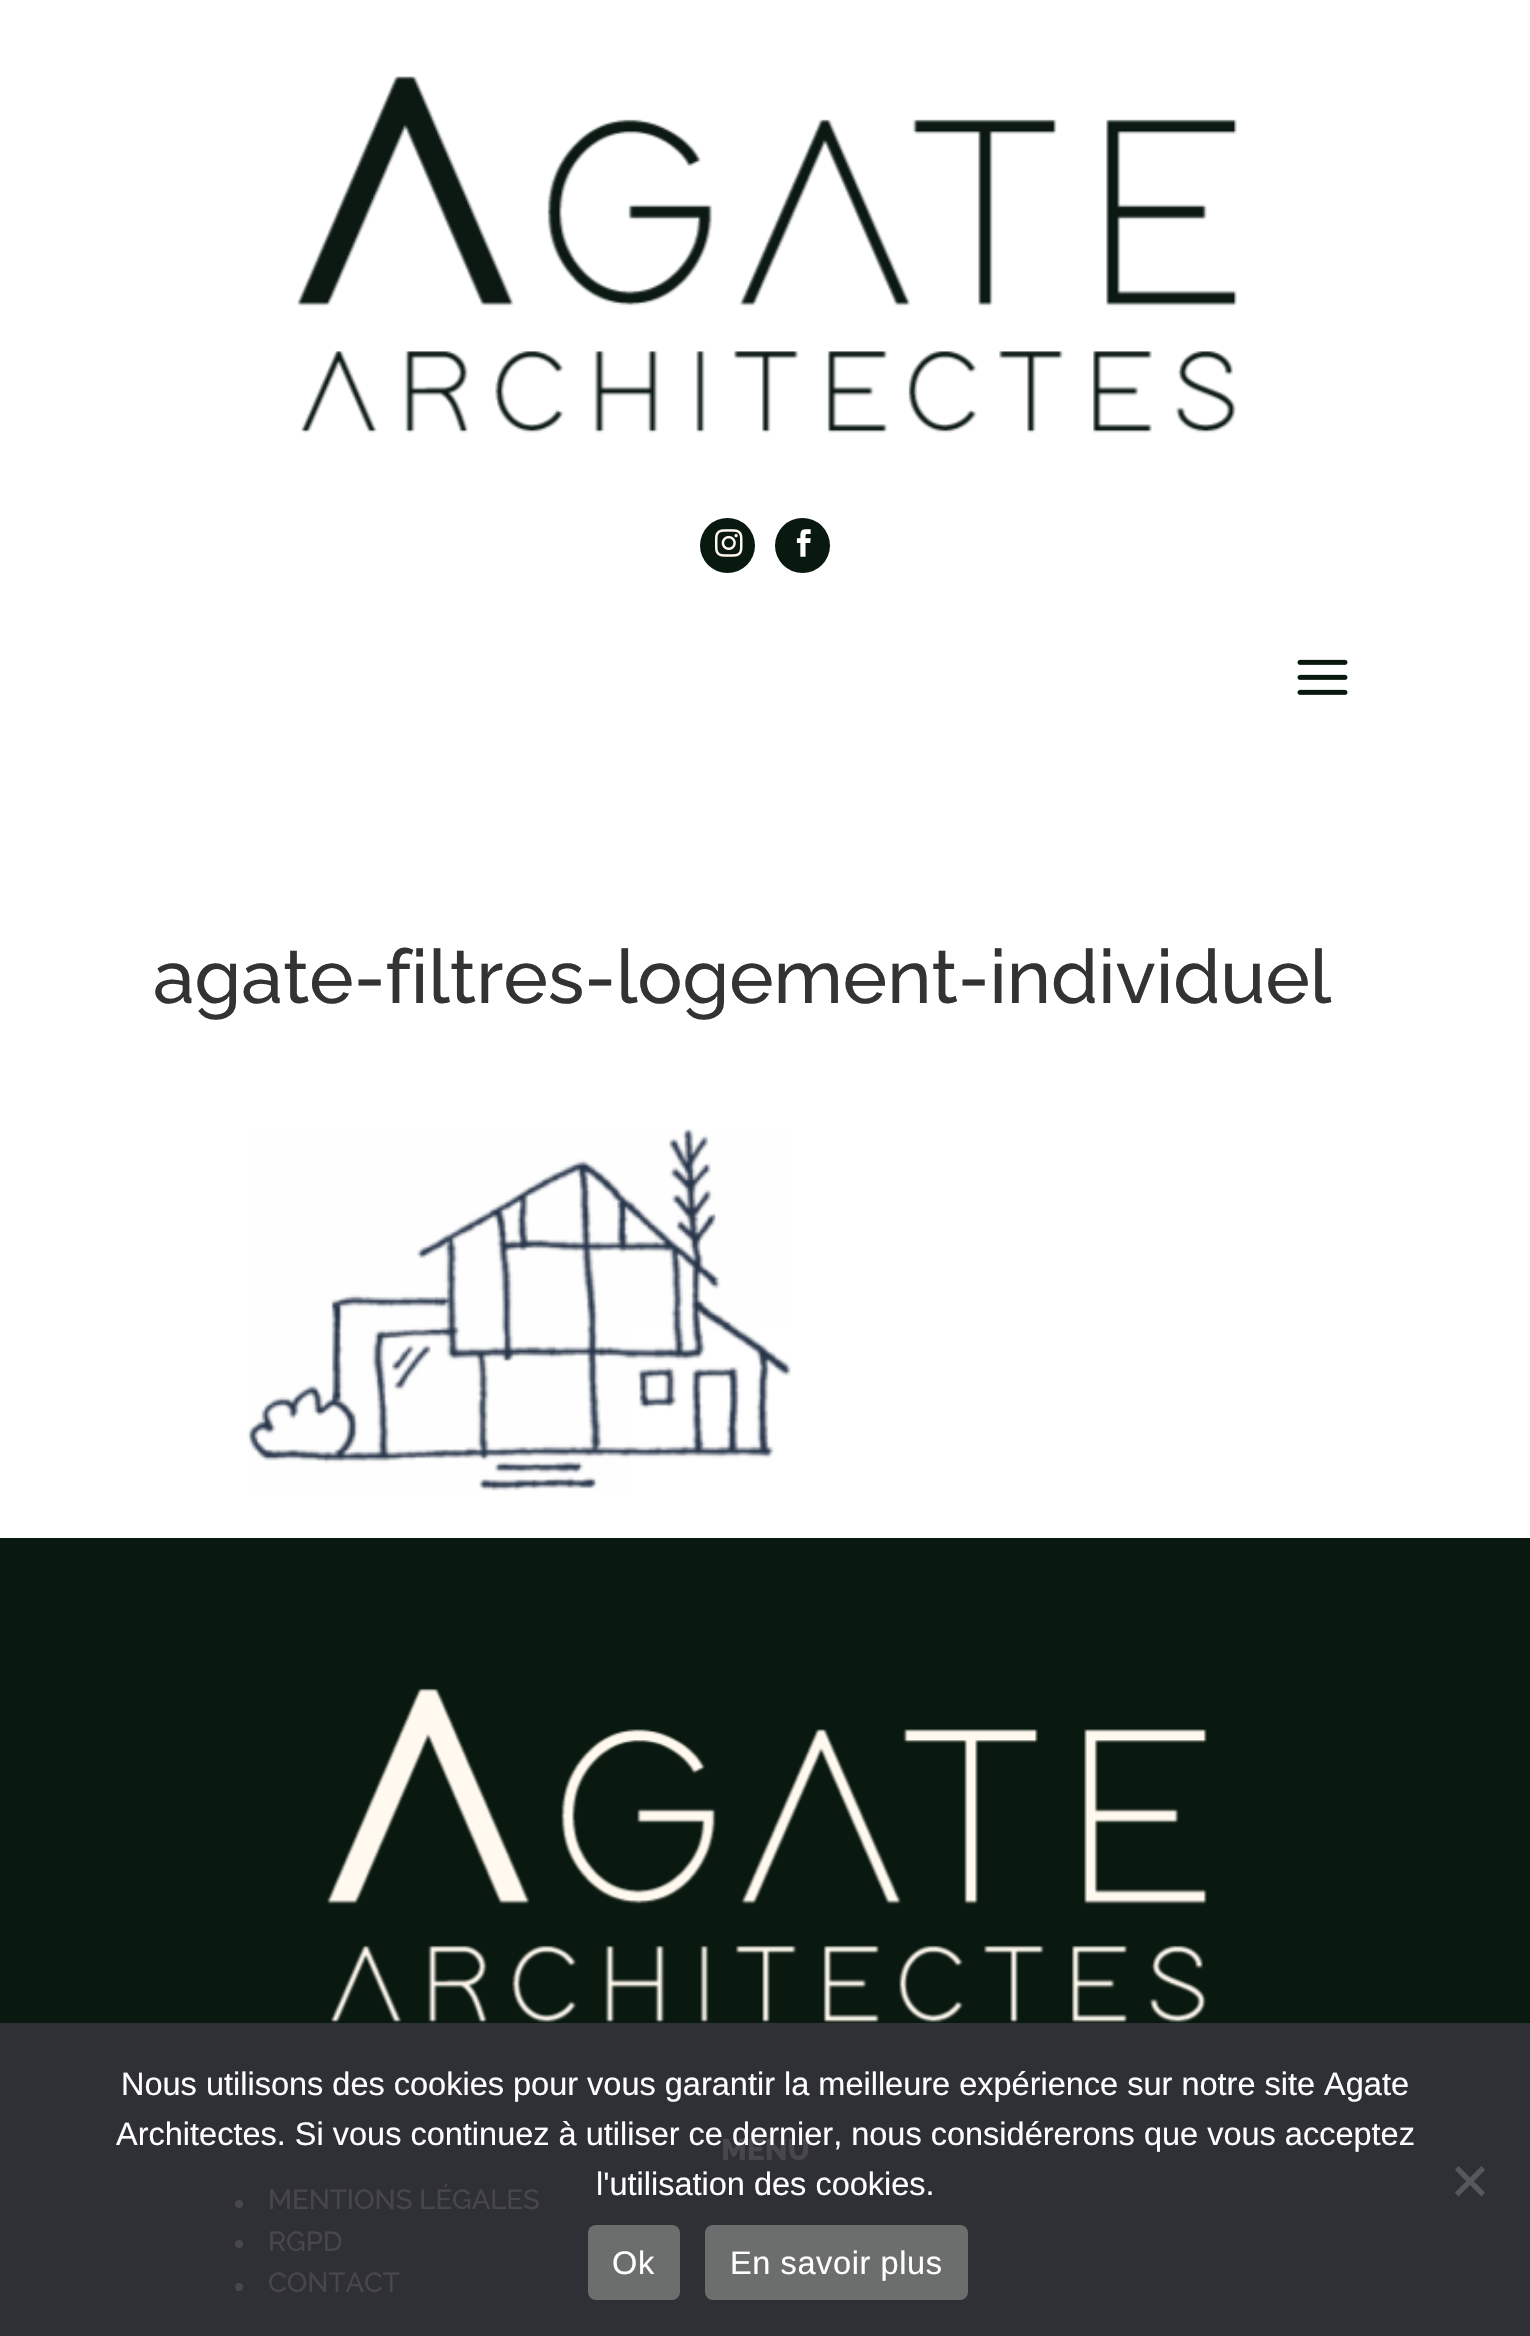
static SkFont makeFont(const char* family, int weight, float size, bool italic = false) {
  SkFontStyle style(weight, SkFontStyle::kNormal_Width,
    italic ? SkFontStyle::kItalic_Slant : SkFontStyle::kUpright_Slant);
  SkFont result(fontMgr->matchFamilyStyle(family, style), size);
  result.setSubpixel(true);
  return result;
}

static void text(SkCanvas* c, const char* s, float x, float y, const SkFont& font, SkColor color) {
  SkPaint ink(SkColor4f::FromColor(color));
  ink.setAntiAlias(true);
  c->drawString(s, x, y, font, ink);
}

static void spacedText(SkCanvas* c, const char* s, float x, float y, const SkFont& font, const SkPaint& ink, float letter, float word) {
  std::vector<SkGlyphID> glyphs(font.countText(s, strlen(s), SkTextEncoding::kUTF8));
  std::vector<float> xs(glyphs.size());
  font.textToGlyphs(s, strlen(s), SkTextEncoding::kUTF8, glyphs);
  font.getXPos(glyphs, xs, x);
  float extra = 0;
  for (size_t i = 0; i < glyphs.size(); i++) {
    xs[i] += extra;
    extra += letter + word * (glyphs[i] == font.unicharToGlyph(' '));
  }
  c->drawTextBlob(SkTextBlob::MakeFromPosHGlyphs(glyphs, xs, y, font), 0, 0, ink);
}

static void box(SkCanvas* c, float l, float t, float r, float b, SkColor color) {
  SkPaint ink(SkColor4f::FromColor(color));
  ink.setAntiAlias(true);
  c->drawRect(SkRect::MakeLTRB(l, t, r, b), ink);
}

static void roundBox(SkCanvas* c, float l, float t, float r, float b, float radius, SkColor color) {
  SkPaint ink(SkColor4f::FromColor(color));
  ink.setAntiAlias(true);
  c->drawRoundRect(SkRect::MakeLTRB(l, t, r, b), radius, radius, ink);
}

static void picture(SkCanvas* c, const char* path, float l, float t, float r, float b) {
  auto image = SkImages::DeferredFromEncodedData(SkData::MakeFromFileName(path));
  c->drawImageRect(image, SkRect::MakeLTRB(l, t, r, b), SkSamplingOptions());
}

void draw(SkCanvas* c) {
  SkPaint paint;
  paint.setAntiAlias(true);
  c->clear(0xffffffff);
  picture(c, "img_01.png", 297, 76, 1237, 433);
  paint.setColor(0xff0a1910);
  c->drawCircle(727.5f, 545.5f, 27.5f, paint);
  picture(c, "img_02.png", 715, 529, 743, 557);
  c->drawCircle(802.5f, 545.5f, 27.5f, paint);
  picture(c, "img_03.png", 796, 529, 811, 557);
  picture(c, "img_04.png", 1297, 659, 1348, 695);
  SkFont face1 = makeFont("Raleway", 500, 75);
  text(c, "agate-filtres-logement-individuel", 153, 1003, face1, 0xff333333);
  picture(c, "img_05.png", 247, 1128, 791, 1491);
  box(c, 0, 1538, 1530, 2023, 0xff0a1910);
  box(c, 0, 2023, 1530, 2336, 0xff2e3036);
  picture(c, "img_06.png", 327, 1688, 1207, 2023);
  SkFont face2 = makeFont("Raleway", 800, 30);
  text(c, "MENU", 721, 2160, face2, 0xff47464c);
  paint.setColor(0xff47464c);
  c->drawCircle(239, 2204, 4, paint);
  SkFont face3 = makeFont("Raleway", 500, 27.5f);
  text(c, "MENTIONS LÉGALES", 268, 2209, face3, 0xff47464c);
  c->drawCircle(239, 2244, 4, paint);
  text(c, "RGPD", 268, 2251, face3, 0xff47464c);
  c->drawCircle(239, 2287, 4, paint);
  text(c, "CONTACT", 268, 2292, face3, 0xff47464c);
  SkFont face4 = makeFont("Liberation Sans", 400, 32.5f);
  text(c, "Nous utilisons des cookies pour vous garantir la meilleure expérience sur notre site Agate", 121, 2095, face4, 0xffffffff);
  text(c, "Architectes. Si vous continuez à utiliser ce dernier, nous considérerons que vous acceptez", 116, 2145, face4, 0xffffffff);
  text(c, "l'utilisation des cookies.", 596, 2195, face4, 0xffffffff);
  paint.setColor(0xff57585b);
  c->drawPath(SkPathBuilder().moveTo(1481.5f, 2166).lineTo(1485, 2170).lineTo(1458.5f, 2196.5f).lineTo(1455, 2192.5f).close().detach(), paint);
  c->drawPath(SkPathBuilder().moveTo(1455, 2170).lineTo(1458.5f, 2166).lineTo(1485, 2192.5f).lineTo(1481.5f, 2196.5f).close().detach(), paint);
  roundBox(c, 588, 2225, 680, 2300, 8, 0xff6c6e6d);
  paint.setColor(0xffffffff);
  spacedText(c, "Ok", 612, 2274, face4, paint, 0.6f, 0);
  roundBox(c, 705, 2225, 968, 2300, 8, 0xff6c6e6d);
  spacedText(c, "En savoir plus", 730, 2274, face4, paint, 0.6f, 0);
}
